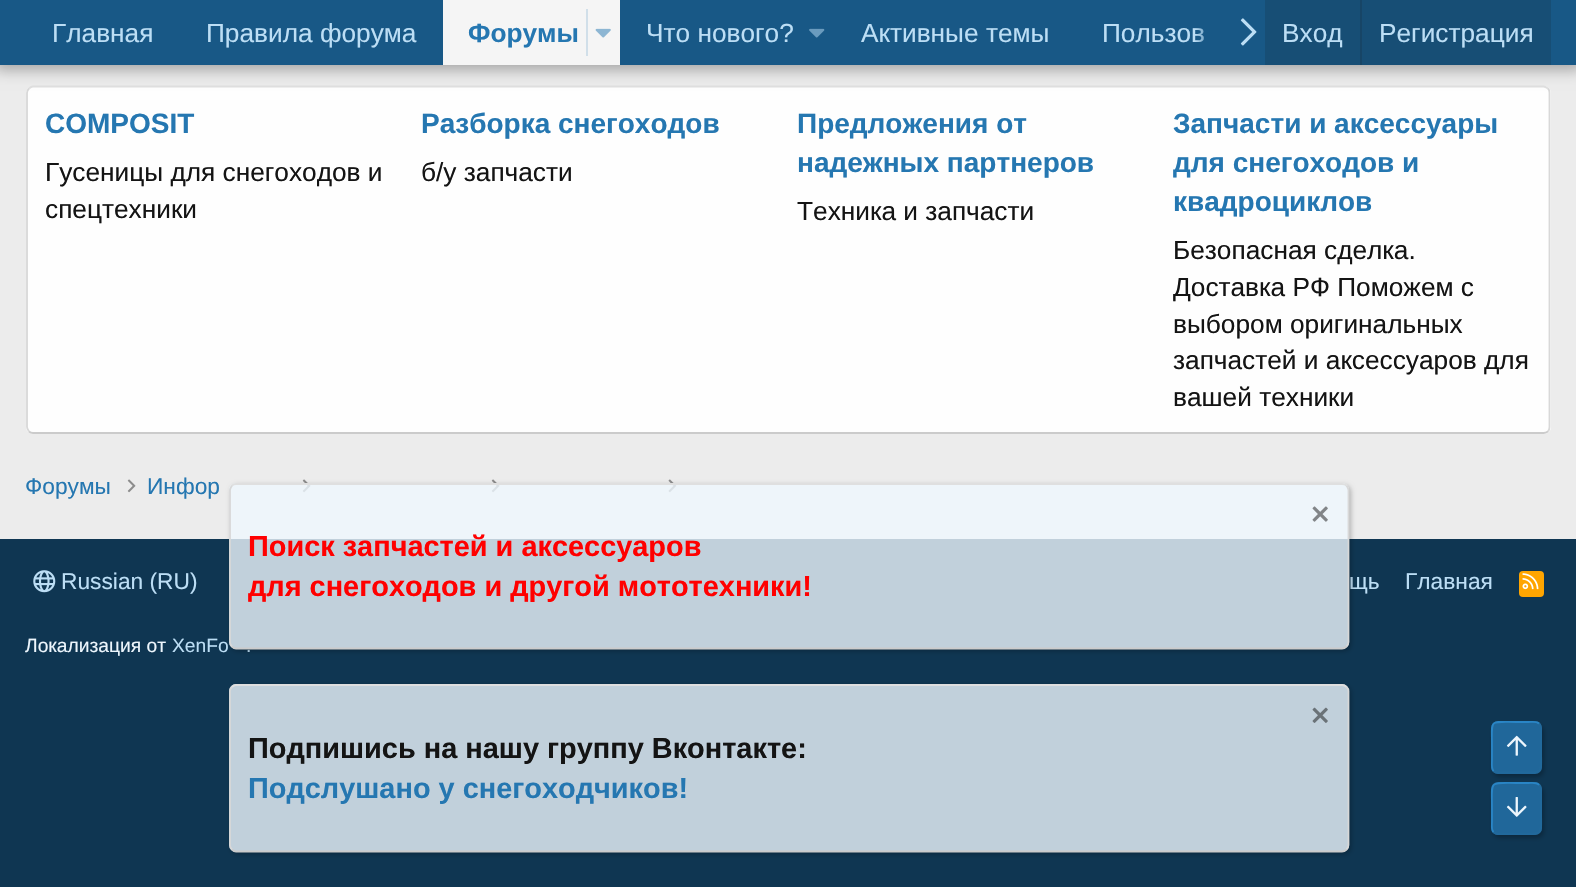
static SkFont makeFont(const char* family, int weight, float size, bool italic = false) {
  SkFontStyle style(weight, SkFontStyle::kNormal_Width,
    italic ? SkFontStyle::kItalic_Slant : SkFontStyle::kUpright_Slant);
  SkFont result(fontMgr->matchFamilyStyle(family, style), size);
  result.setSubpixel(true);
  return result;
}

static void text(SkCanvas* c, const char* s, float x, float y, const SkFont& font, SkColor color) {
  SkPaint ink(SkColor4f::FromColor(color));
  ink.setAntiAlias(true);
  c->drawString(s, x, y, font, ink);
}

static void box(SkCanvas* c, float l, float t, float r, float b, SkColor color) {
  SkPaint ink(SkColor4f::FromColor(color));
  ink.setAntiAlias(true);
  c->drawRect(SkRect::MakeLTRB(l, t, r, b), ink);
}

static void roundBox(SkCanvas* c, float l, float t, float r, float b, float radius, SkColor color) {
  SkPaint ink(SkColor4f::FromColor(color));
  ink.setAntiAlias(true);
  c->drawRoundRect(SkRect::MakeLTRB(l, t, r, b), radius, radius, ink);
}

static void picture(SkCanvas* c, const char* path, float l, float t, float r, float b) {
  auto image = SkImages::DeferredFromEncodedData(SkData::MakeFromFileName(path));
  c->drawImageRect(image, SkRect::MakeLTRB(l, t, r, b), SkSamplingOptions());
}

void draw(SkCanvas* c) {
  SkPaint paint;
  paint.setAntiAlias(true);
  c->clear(0xffececec);
  roundBox(c, 26, 86, 1551, 434, 7, 0xfffefefe);
  paint.setStyle(SkPaint::kStroke_Style);
  paint.setStrokeWidth(1.8f);
  paint.setColor(0xffdfdfdf);
  c->drawPath(SkPathBuilder().moveTo(29, 88.5f).cubicTo(30, 87.5f, 31.5f, 86.5f, 33, 86.5f).lineTo(1543.5f, 86.5f).cubicTo(1545, 86.5f, 1546.5f, 87.5f, 1548, 88.5f).detach(), paint);
  paint.setColor(0xffd8d8d8);
  c->drawPath(SkPathBuilder().moveTo(1548, 88.5f).cubicTo(1549, 89.5f, 1549.5f, 91, 1549.5f, 93).lineTo(1549.5f, 427).cubicTo(1549.5f, 428.5f, 1549, 430, 1548, 431.5f).detach(), paint);
  paint.setColor(0xffcbcbcb);
  c->drawPath(SkPathBuilder().moveTo(1548, 431.5f).cubicTo(1546.5f, 432.5f, 1545, 433, 1543.5f, 433).lineTo(33, 433).cubicTo(31.5f, 433, 30, 432.5f, 29, 431.5f).detach(), paint);
  paint.setColor(0xffd8d8d8);
  c->drawPath(SkPathBuilder().moveTo(29, 431.5f).cubicTo(28, 430, 27, 428.5f, 27, 427).lineTo(27, 93).cubicTo(27, 91, 28, 89.5f, 29, 88.5f).detach(), paint);
  paint.setStyle(SkPaint::kFill_Style);
  paint.setColor(0x4d000000);
  paint.setMaskFilter(SkMaskFilter::MakeBlur(kNormal_SkBlurStyle, 7));
  c->drawRect(SkRect::MakeLTRB(-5, -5, 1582, 70), paint);
  paint.setMaskFilter(nullptr);
  box(c, 0, 0, 1576, 65, 0xff185886);
  SkFont face1 = makeFont("Liberation Sans", 400, 26.25f);
  text(c, "Главная", 52, 42, face1, 0xffbcdef5);
  text(c, "Правила форума", 206, 42, face1, 0xffbcdef5);
  box(c, 443, 0, 620, 65, 0xfff5f5f5);
  SkFont face2 = makeFont("Liberation Sans", 700, 26.25f);
  text(c, "Форумы", 468, 42, face2, 0xff2577b1);
  box(c, 586, 9, 588, 56, 0xffd1dfe9);
  picture(c, "img_01.png", 595, 28, 611, 38);
  text(c, "Что нового?", 646, 42, face1, 0xffbcdef5);
  picture(c, "img_02.png", 809, 28, 825, 38);
  text(c, "Активные темы", 861, 42, face1, 0xffbcdef5);
  text(c, "Пользов", 1102, 42, face1, 0xffbcdef5);
  {
    const SkColor colors[] = {0x00185886, 0xff185886};
    const float stops[] = {0, 0.33f};
    const SkPoint ends[] = {{1195, 32}, {1265, 32}};
    paint.setShader(SkGradientShader::MakeLinear(ends, colors, stops, 2, SkTileMode::kClamp));
    paint.setAlpha(255);
  }
  c->drawRect(SkRect::MakeLTRB(1195, 28, 1204, 42), paint);
  picture(c, "img_03.png", 1240, 18, 1257, 46);
  box(c, 1265, 0, 1551, 65, 0xff174e75);
  text(c, "Вход", 1282, 42, face1, 0xffbcdef5);
  box(c, 1360, 0, 1362, 65, 0xff174566);
  text(c, "Регистрация", 1379, 42, face1, 0xffbcdef5);
  SkFont face3 = makeFont("Liberation Sans", 700, 28);
  text(c, "COMPOSIT", 45, 133, face3, 0xff2577b1);
  text(c, "Гусеницы для снегоходов и", 45, 181, face1, 0xff141414);
  text(c, "спецтехники", 45, 218, face1, 0xff141414);
  text(c, "Разборка снегоходов", 421, 133, face3, 0xff2577b1);
  text(c, "б/у запчасти", 421, 181, face1, 0xff141414);
  text(c, "Предложения от", 797, 133, face3, 0xff2577b1);
  text(c, "надежных партнеров", 797, 172, face3, 0xff2577b1);
  text(c, "Техника и запчасти", 797, 220, face1, 0xff141414);
  text(c, "Запчасти и аксессуары", 1173, 133, face3, 0xff2577b1);
  text(c, "для снегоходов и", 1173, 172, face3, 0xff2577b1);
  text(c, "квадроциклов", 1173, 211, face3, 0xff2577b1);
  text(c, "Безопасная сделка.", 1173, 259, face1, 0xff141414);
  text(c, "Доставка РФ Поможем с", 1173, 296, face1, 0xff141414);
  text(c, "выбором оригинальных", 1173, 333, face1, 0xff141414);
  text(c, "запчастей и аксессуаров для", 1173, 369, face1, 0xff141414);
  text(c, "вашей техники", 1173, 406, face1, 0xff141414);
  SkFont face4 = makeFont("Liberation Sans", 400, 22.75f);
  text(c, "Форумы", 25, 494, face4, 0xff2577b1);
  picture(c, "img_04.png", 127, 479, 136, 493);
  text(c, "Инфор", 147, 494, face4, 0xff2577b1);
  picture(c, "img_04.png", 302, 479, 311, 493);
  picture(c, "img_04.png", 491, 479, 500, 493);
  picture(c, "img_05.png", 668, 479, 677, 493);
  box(c, 0, 539, 1576, 887, 0xff0f3652);
  picture(c, "img_06.png", 33, 570, 56, 593);
  text(c, "Russian (RU)", 61, 589, face4, 0xffbcdef5);
  text(c, "щь", 1349, 589, face4, 0xffbcdef5);
  text(c, "Главная", 1405, 589, face4, 0xffbcdef5);
  roundBox(c, 1519, 571, 1544, 597, 4, 0xffffa500);
  picture(c, "img_07.png", 1522, 573, 1539, 590);
  SkFont face5 = makeFont("Liberation Sans", 400, 19.25f);
  text(c, "Локализация от", 25, 652, face5, 0xffedf6fd);
  text(c, "XenFo", 172, 652, face5, 0xffbcdef5);
  text(c, ".", 246, 652, face5, 0xffbcdef5);
  c->save();
  c->clipPath(SkPathBuilder(SkPathFillType::kEvenOdd).moveTo(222, 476).lineTo(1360, 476).lineTo(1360, 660).lineTo(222, 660).close().moveTo(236, 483).lineTo(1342, 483).cubicTo(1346, 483, 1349, 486, 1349, 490).lineTo(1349, 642).cubicTo(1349, 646, 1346, 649, 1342, 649).lineTo(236, 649).cubicTo(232, 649, 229, 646, 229, 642).lineTo(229, 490).cubicTo(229, 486, 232, 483, 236, 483).close().detach(), true);
  paint.setShader(nullptr);
  paint.setColor(0x40000000);
  paint.setMaskFilter(SkMaskFilter::MakeBlur(kNormal_SkBlurStyle, 2.5f));
  c->drawRoundRect(SkRect::MakeLTRB(231, 485, 1351, 651), 7, 7, paint);
  paint.setMaskFilter(nullptr);
  c->restore();
  roundBox(c, 229, 483, 1349, 649, 7, 0xccedf6fd);
  paint.setStyle(SkPaint::kStroke_Style);
  paint.setColor(0xffdfdfdf);
  c->drawPath(SkPathBuilder().moveTo(232, 485.5f).cubicTo(233, 484.5f, 234.5f, 484, 236, 484).lineTo(1342, 484).cubicTo(1344, 484, 1345.5f, 484.5f, 1346.5f, 485.5f).detach(), paint);
  paint.setColor(0xffd8d8d8);
  c->drawPath(SkPathBuilder().moveTo(1346.5f, 485.5f).cubicTo(1347.5f, 487, 1348.5f, 488.5f, 1348.5f, 490).lineTo(1348.5f, 642).cubicTo(1348.5f, 644, 1347.5f, 645.5f, 1346.5f, 646.5f).detach(), paint);
  paint.setColor(0xffcbcbcb);
  c->drawPath(SkPathBuilder().moveTo(1346.5f, 646.5f).cubicTo(1345.5f, 647.5f, 1344, 648.5f, 1342, 648.5f).lineTo(236, 648.5f).cubicTo(234.5f, 648.5f, 233, 647.5f, 232, 646.5f).detach(), paint);
  paint.setColor(0xffd8d8d8);
  c->drawPath(SkPathBuilder().moveTo(232, 646.5f).cubicTo(231, 645.5f, 230, 644, 230, 642).lineTo(230, 490).cubicTo(230, 488.5f, 231, 487, 232, 485.5f).detach(), paint);
  picture(c, "img_08.png", 1312, 506, 1328, 522);
  SkFont face6 = makeFont("Liberation Sans", 700, 28.9f);
  text(c, "Поиск запчастей и аксессуаров", 248, 556, face6, 0xffff0000);
  text(c, "для снегоходов и другой мототехники!", 248, 596, face6, 0xffff0000);
  c->save();
  c->clipPath(SkPathBuilder(SkPathFillType::kEvenOdd).moveTo(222, 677).lineTo(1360, 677).lineTo(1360, 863).lineTo(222, 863).close().moveTo(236, 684).lineTo(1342, 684).cubicTo(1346, 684, 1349, 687, 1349, 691).lineTo(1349, 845).cubicTo(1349, 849, 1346, 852, 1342, 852).lineTo(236, 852).cubicTo(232, 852, 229, 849, 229, 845).lineTo(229, 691).cubicTo(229, 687, 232, 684, 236, 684).close().detach(), true);
  paint.setStyle(SkPaint::kFill_Style);
  paint.setColor(0x40000000);
  paint.setMaskFilter(SkMaskFilter::MakeBlur(kNormal_SkBlurStyle, 2.5f));
  c->drawRoundRect(SkRect::MakeLTRB(231, 686, 1351, 854), 7, 7, paint);
  paint.setMaskFilter(nullptr);
  c->restore();
  roundBox(c, 229, 684, 1349, 852, 7, 0xccedf6fd);
  paint.setStyle(SkPaint::kStroke_Style);
  paint.setColor(0xffdfdfdf);
  c->drawPath(SkPathBuilder().moveTo(232, 687).cubicTo(233, 686, 234.5f, 685, 236, 685).lineTo(1342, 685).cubicTo(1344, 685, 1345.5f, 686, 1346.5f, 687).detach(), paint);
  paint.setColor(0xffd8d8d8);
  c->drawPath(SkPathBuilder().moveTo(1346.5f, 687).cubicTo(1347.5f, 688, 1348.5f, 689.5f, 1348.5f, 691).lineTo(1348.5f, 845).cubicTo(1348.5f, 847, 1347.5f, 848.5f, 1346.5f, 849.5f).detach(), paint);
  paint.setColor(0xffcbcbcb);
  c->drawPath(SkPathBuilder().moveTo(1346.5f, 849.5f).cubicTo(1345.5f, 850.5f, 1344, 851.5f, 1342, 851.5f).lineTo(236, 851.5f).cubicTo(234.5f, 851.5f, 233, 850.5f, 232, 849.5f).detach(), paint);
  paint.setColor(0xffd8d8d8);
  c->drawPath(SkPathBuilder().moveTo(232, 849.5f).cubicTo(231, 848.5f, 230, 847, 230, 845).lineTo(230, 691).cubicTo(230, 689.5f, 231, 688, 232, 687).detach(), paint);
  picture(c, "img_09.png", 1312, 707, 1328, 723);
  text(c, "Подпишись на нашу группу Вконтакте:", 248, 758, face6, 0xff141414);
  text(c, "Подслушано у снегоходчиков!", 248, 798, face6, 0xff2577b1);
  c->save();
  c->clipPath(SkPathBuilder(SkPathFillType::kEvenOdd).moveTo(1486, 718).lineTo(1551, 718).lineTo(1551, 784).lineTo(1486, 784).close().moveTo(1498, 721).lineTo(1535, 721).cubicTo(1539, 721, 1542, 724, 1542, 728).lineTo(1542, 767).cubicTo(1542, 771, 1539, 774, 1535, 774).lineTo(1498, 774).cubicTo(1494, 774, 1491, 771, 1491, 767).lineTo(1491, 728).cubicTo(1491, 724, 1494, 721, 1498, 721).close().detach(), true);
  paint.setStyle(SkPaint::kFill_Style);
  paint.setColor(0x40000000);
  paint.setMaskFilter(SkMaskFilter::MakeBlur(kNormal_SkBlurStyle, 2));
  c->drawRoundRect(SkRect::MakeLTRB(1493, 725, 1544, 777), 7, 7, paint);
  paint.setMaskFilter(nullptr);
  c->restore();
  roundBox(c, 1491, 721, 1542, 774, 7, 0xbf2577b1);
  paint.setStyle(SkPaint::kStroke_Style);
  paint.setColor(0xff21699c);
  c->drawPath(SkPathBuilder().moveTo(1539, 723.5f).cubicTo(1542, 726.5f, 1541, 731, 1541, 734.5f).lineTo(1541, 747).cubicTo(1541, 776, 1545, 772.5f, 1516.5f, 772.5f).lineTo(1504, 772.5f).cubicTo(1501, 772.5f, 1496.5f, 773.5f, 1493.5f, 771).detach(), paint);
  paint.setColor(0xff2985c6);
  c->drawPath(SkPathBuilder().moveTo(1493.5f, 771).cubicTo(1491, 768, 1492, 763.5f, 1492, 760).lineTo(1492, 747).cubicTo(1492, 718.5f, 1488, 722, 1516.5f, 722).lineTo(1528.5f, 722).cubicTo(1532, 722, 1536.5f, 721, 1539, 723.5f).detach(), paint);
  picture(c, "img_10.png", 1506, 735, 1527, 756);
  c->save();
  c->clipPath(SkPathBuilder(SkPathFillType::kEvenOdd).moveTo(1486, 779).lineTo(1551, 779).lineTo(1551, 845).lineTo(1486, 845).close().moveTo(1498, 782).lineTo(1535, 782).cubicTo(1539, 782, 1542, 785, 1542, 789).lineTo(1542, 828).cubicTo(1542, 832, 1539, 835, 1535, 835).lineTo(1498, 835).cubicTo(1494, 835, 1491, 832, 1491, 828).lineTo(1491, 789).cubicTo(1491, 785, 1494, 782, 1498, 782).close().detach(), true);
  paint.setStyle(SkPaint::kFill_Style);
  paint.setColor(0x40000000);
  paint.setMaskFilter(SkMaskFilter::MakeBlur(kNormal_SkBlurStyle, 2));
  c->drawRoundRect(SkRect::MakeLTRB(1493, 786, 1544, 838), 7, 7, paint);
  paint.setMaskFilter(nullptr);
  c->restore();
  roundBox(c, 1491, 782, 1542, 835, 7, 0xbf2577b1);
  paint.setStyle(SkPaint::kStroke_Style);
  paint.setColor(0xff21699c);
  c->drawPath(SkPathBuilder().moveTo(1539, 785).cubicTo(1542, 787.5f, 1541, 792.5f, 1541, 795.5f).lineTo(1541, 808.5f).cubicTo(1541, 837, 1545, 834, 1516.5f, 834).lineTo(1504, 834).cubicTo(1501, 834, 1496.5f, 835, 1493.5f, 832).detach(), paint);
  paint.setColor(0xff2985c6);
  c->drawPath(SkPathBuilder().moveTo(1493.5f, 832).cubicTo(1491, 829.5f, 1492, 824.5f, 1492, 821.5f).lineTo(1492, 808.5f).cubicTo(1492, 780, 1488, 783, 1516.5f, 783).lineTo(1528.5f, 783).cubicTo(1532, 783, 1536.5f, 782, 1539, 785).detach(), paint);
  picture(c, "img_11.png", 1506, 797, 1527, 817);
}
